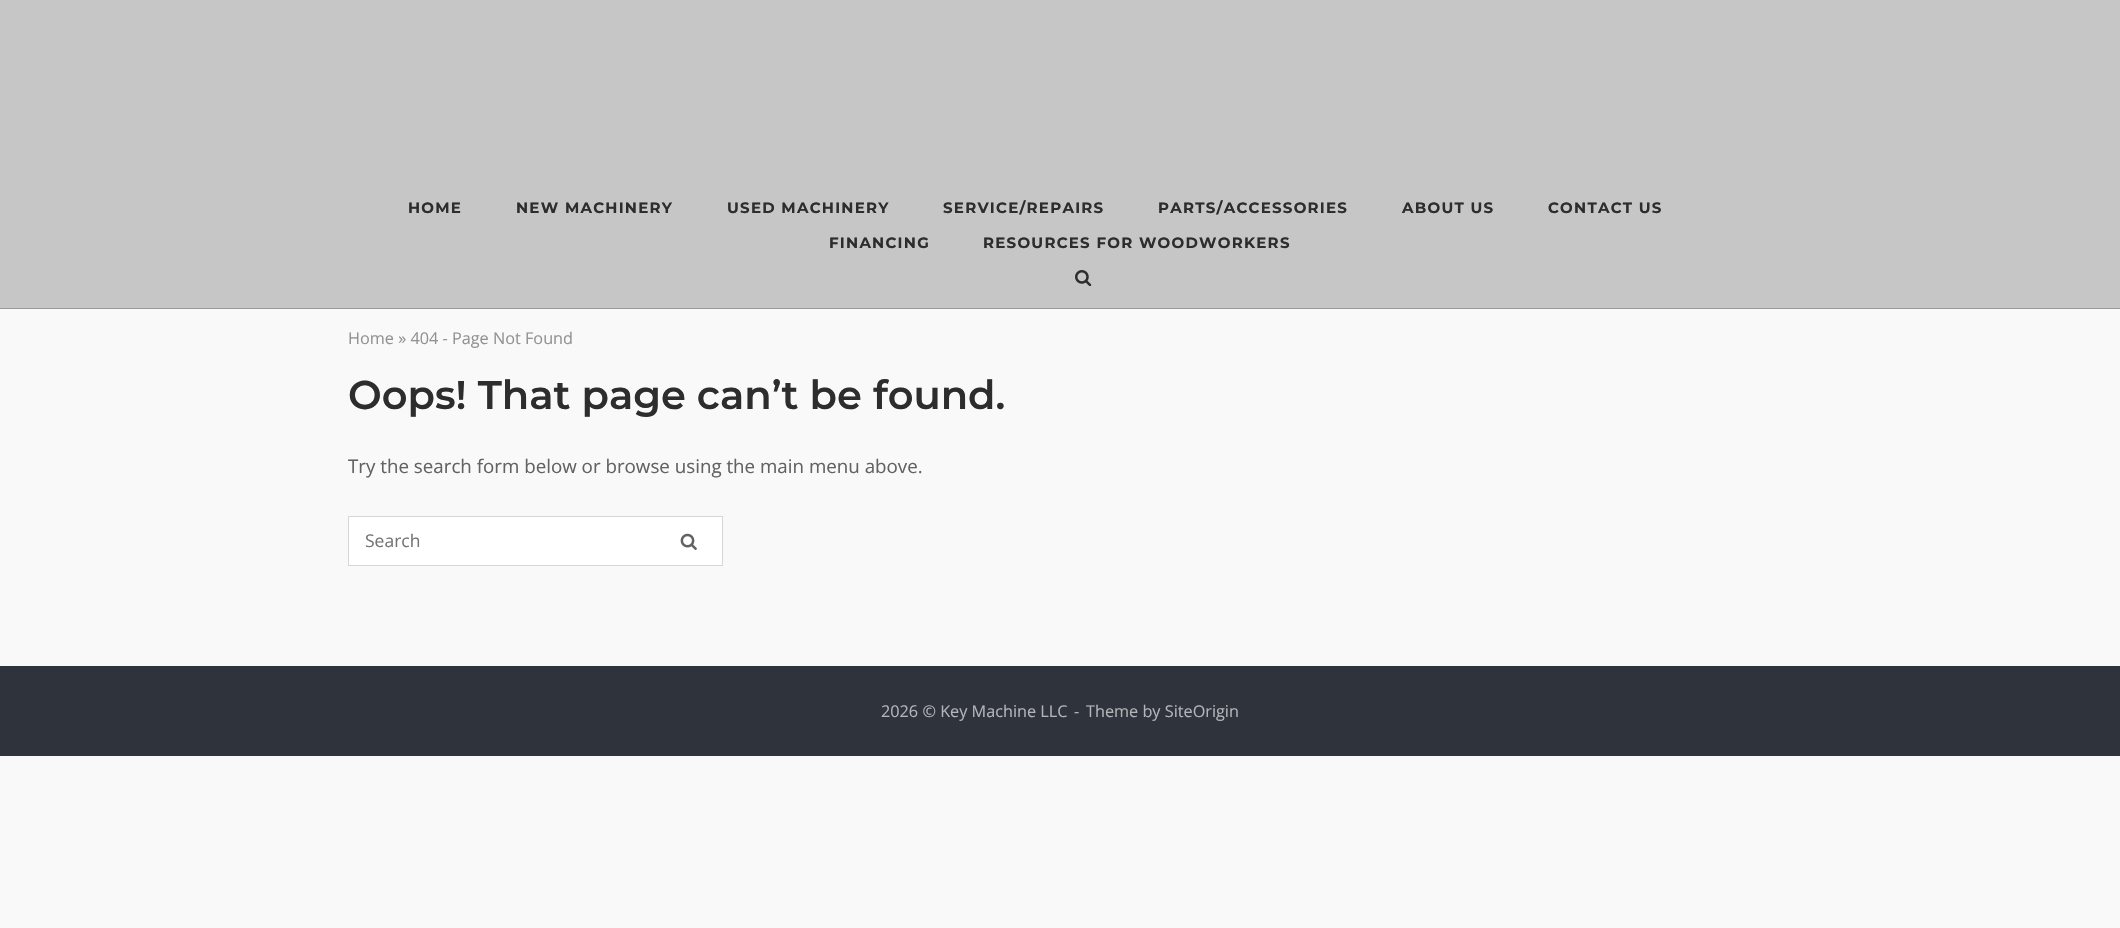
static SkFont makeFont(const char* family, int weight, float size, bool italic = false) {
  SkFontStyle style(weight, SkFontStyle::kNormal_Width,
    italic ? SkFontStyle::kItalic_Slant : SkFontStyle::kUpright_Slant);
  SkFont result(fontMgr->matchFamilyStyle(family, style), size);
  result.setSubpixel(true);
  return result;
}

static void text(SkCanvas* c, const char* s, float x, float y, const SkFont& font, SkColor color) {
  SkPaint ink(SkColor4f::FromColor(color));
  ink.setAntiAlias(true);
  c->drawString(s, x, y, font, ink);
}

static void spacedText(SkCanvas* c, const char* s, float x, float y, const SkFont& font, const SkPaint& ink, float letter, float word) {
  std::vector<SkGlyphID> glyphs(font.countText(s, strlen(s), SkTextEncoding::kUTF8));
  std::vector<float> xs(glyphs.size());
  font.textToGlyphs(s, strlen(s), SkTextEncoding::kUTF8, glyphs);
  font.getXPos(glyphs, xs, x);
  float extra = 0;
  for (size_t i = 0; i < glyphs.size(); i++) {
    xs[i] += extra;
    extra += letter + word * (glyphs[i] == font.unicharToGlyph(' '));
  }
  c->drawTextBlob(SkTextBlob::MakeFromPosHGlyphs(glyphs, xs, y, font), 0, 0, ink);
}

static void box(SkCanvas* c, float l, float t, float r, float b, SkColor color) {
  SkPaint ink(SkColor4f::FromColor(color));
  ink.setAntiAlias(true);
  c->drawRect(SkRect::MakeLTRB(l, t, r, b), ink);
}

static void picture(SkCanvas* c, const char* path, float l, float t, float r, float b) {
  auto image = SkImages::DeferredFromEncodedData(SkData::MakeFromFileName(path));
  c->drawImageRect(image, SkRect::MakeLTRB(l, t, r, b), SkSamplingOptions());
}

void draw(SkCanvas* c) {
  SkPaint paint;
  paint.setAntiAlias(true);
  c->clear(0xfff9f9f9);
  box(c, 0, 0, 2120, 308, 0xffc6c6c6);
  box(c, 0, 308, 2120, 309, 0xff999999);
  SkFont face1 = makeFont("Montserrat", 700, 15);
  paint.setColor(0xff2d2d2d);
  spacedText(c, "HOME", 408, 213, face1, paint, 1.25f, 0);
  spacedText(c, "NEW MACHINERY", 516, 213, face1, paint, 1.25f, 0);
  spacedText(c, "USED MACHINERY", 727, 213, face1, paint, 1.25f, 0);
  spacedText(c, "SERVICE/REPAIRS", 943, 213, face1, paint, 1.25f, 0);
  spacedText(c, "PARTS/ACCESSORIES", 1158, 213, face1, paint, 1.25f, 0);
  spacedText(c, "ABOUT US", 1402, 213, face1, paint, 1.25f, 0);
  spacedText(c, "CONTACT US", 1548, 213, face1, paint, 1.25f, 0);
  spacedText(c, "FINANCING", 829, 248, face1, paint, 1.25f, 0);
  spacedText(c, "RESOURCES FOR WOODWORKERS", 983, 248, face1, paint, 1.25f, 0);
  picture(c, "img_01.png", 1075, 270, 1092, 286);
  SkFont face2 = makeFont("Open Sans", 400, 16.25f);
  text(c, "Home » 404 - Page Not Found", 348, 344, face2, 0xff929292);
  SkFont face3 = makeFont("Montserrat", 600, 40);
  text(c, "Oops! That page can’t be found.", 348, 409, face3, 0xff2d2d2d);
  SkFont face4 = makeFont("Open Sans", 400, 18.75f);
  text(c, "Try the search form below or browse using the main menu above.", 348, 473, face4, 0xff626262);
  paint.setColor(0xffffffff);
  c->drawRect(SkRect::MakeLTRB(348.5f, 516.5f, 722.5f, 565.5f), paint);
  paint.setStyle(SkPaint::kStroke_Style);
  paint.setStrokeWidth(1);
  paint.setColor(0xffd6d6d6);
  c->drawRect(SkRect::MakeLTRB(348.5f, 516.5f, 722.5f, 565.5f), paint);
  SkFont face5 = makeFont("Open Sans", 400, 17.5f);
  text(c, "Search", 365, 547, face5, 0xff757575);
  picture(c, "img_02.png", 680, 533, 697, 550);
  box(c, 0, 666, 2120, 756, 0xff2f333b);
  text(c, "2026 © Key Machine LLC", 881, 717, face2, 0xffb4b5b8);
  text(c, "-", 1074, 717, face2, 0xffb4b5b8);
  text(c, "Theme by SiteOrigin", 1086, 717, face2, 0xffb4b5b8);
}
